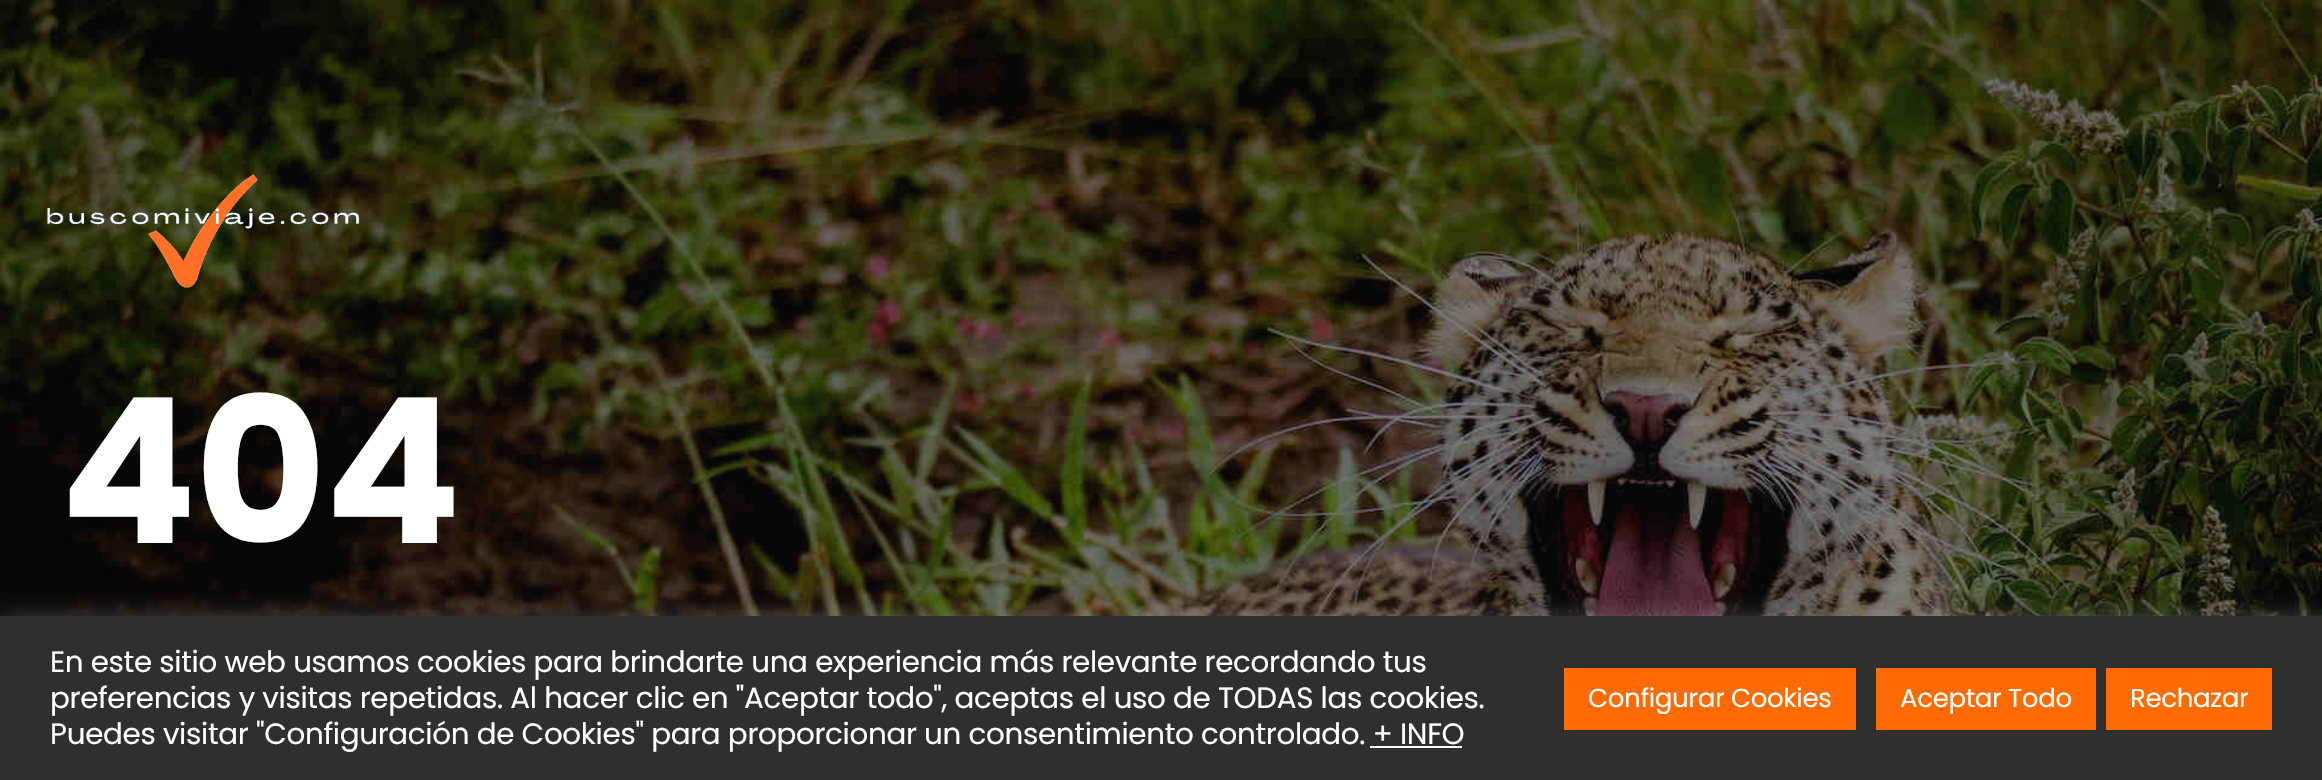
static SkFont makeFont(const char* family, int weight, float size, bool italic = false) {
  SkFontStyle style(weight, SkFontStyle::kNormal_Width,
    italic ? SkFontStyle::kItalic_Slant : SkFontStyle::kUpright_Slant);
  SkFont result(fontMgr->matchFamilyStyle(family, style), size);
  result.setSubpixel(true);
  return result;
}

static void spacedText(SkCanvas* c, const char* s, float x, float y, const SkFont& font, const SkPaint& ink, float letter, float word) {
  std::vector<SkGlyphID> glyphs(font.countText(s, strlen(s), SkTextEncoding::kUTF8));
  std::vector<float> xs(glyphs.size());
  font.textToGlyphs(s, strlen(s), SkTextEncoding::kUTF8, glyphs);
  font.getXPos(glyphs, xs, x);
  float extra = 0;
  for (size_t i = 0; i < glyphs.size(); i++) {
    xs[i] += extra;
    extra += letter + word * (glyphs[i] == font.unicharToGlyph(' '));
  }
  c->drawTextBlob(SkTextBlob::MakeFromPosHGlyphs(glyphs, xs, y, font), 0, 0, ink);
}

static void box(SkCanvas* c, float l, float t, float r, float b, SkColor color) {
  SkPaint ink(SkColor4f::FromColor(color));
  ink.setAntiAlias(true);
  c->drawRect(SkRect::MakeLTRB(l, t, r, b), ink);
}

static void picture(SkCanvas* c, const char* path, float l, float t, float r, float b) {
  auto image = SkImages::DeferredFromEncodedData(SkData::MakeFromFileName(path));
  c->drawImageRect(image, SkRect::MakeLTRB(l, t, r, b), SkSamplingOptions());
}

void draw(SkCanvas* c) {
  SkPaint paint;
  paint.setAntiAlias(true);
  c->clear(0xffffffff);
  picture(c, "img_01.png", 0, 0, 2322, 616);
  picture(c, "img_02.png", 47, 174, 360, 288);
  SkFont face1 = makeFont("Poppins", 700, 202);
  paint.setColor(0xffffffff);
  spacedText(c, "404", 60, 543, face1, paint, -2, 0);
  paint.setColor(0x4dadacac);
  paint.setMaskFilter(SkMaskFilter::MakeBlur(kNormal_SkBlurStyle, 10));
  c->drawRect(SkRect::MakeLTRB(0, 614, 2322, 778), paint);
  paint.setMaskFilter(nullptr);
  box(c, 0, 616, 2322, 780, 0xff2f2f2f);
  SkFont face2 = makeFont("Poppins", 400, 29.35f);
  paint.setColor(0xffffffff);
  spacedText(c, "En este sitio web usamos cookies para brindarte una experiencia más relevante recordando tus", 50, 672, face2, paint, -0.32f, 0);
  spacedText(c, "preferencias y visitas repetidas. Al hacer clic en \"Aceptar todo\", aceptas el uso de TODAS las cookies.", 50, 708, face2, paint, -0.32f, 0);
  spacedText(c, "Puedes visitar \"Configuración de Cookies\" para proporcionar un consentimiento controlado. + INFO", 50, 744, face2, paint, -0.32f, 0);
  box(c, 1370, 746, 1462, 748, 0xffffffff);
  box(c, 1564, 668, 1856, 730, 0xffff6b03);
  SkFont face3 = makeFont("Poppins", 400, 26);
  spacedText(c, "Configurar Cookies", 1588, 707, face3, paint, -0.32f, 0);
  box(c, 1876, 668, 2096, 730, 0xffff6b03);
  spacedText(c, "Aceptar Todo", 1900, 707, face3, paint, -0.32f, 0);
  box(c, 2106, 668, 2272, 730, 0xffff6b03);
  spacedText(c, "Rechazar", 2130, 707, face3, paint, -0.32f, 0);
}
